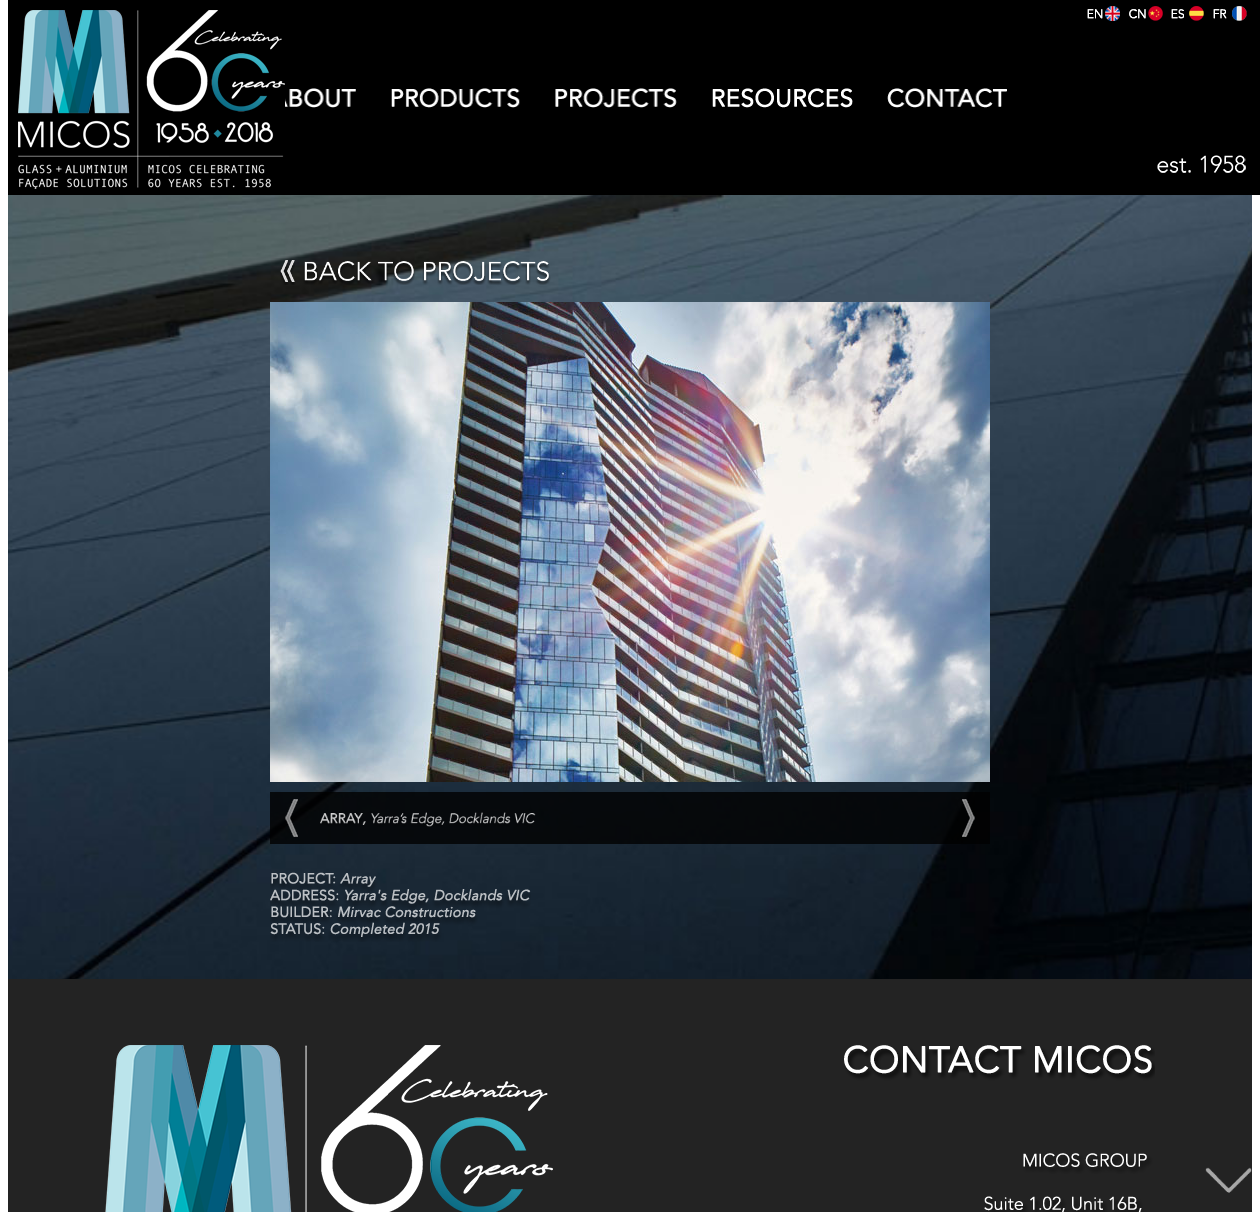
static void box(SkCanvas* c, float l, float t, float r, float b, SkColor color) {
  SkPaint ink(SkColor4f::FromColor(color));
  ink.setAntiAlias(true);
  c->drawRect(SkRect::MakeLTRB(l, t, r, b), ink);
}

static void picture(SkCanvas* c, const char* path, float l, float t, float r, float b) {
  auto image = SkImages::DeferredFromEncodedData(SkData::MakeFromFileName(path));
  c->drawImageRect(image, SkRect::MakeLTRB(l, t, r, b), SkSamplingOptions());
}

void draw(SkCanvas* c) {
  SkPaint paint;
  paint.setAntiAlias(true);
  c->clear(0xffffffff);
  box(c, 8, 0, 1260, 195, 0xff000000);
  picture(c, "img_01.png", 18, 10, 285, 189);
  picture(c, "img_02.png", 285, 88, 356, 108);
  picture(c, "img_03.png", 391, 88, 520, 108);
  picture(c, "img_04.png", 555, 88, 677, 108);
  picture(c, "img_05.png", 712, 88, 853, 108);
  picture(c, "img_06.png", 887, 88, 1007, 108);
  picture(c, "img_07.png", 1087, 6, 1120, 21);
  picture(c, "img_08.png", 1129, 6, 1163, 21);
  picture(c, "img_09.png", 1171, 6, 1204, 21);
  picture(c, "img_10.png", 1213, 6, 1247, 21);
  picture(c, "img_11.png", 1157, 155, 1246, 173);
  picture(c, "img_12.png", 8, 195, 1252, 979);
  picture(c, "img_13.png", 270, 302, 990, 782);
  box(c, 270, 792, 990, 844, 0xcc000000);
  picture(c, "img_14.png", 320, 812, 536, 827);
  picture(c, "img_15.png", 285, 799, 298, 837);
  picture(c, "img_16.png", 962, 799, 975, 837);
  picture(c, "img_17.png", 270, 872, 531, 942);
  picture(c, "img_18.png", 280, 260, 551, 285);
  box(c, 8, 979, 1252, 1212, 0xff232323);
  picture(c, "img_19.png", 105, 1045, 1155, 1212);
  picture(c, "img_20.png", 1205, 1167, 1252, 1193);
}
